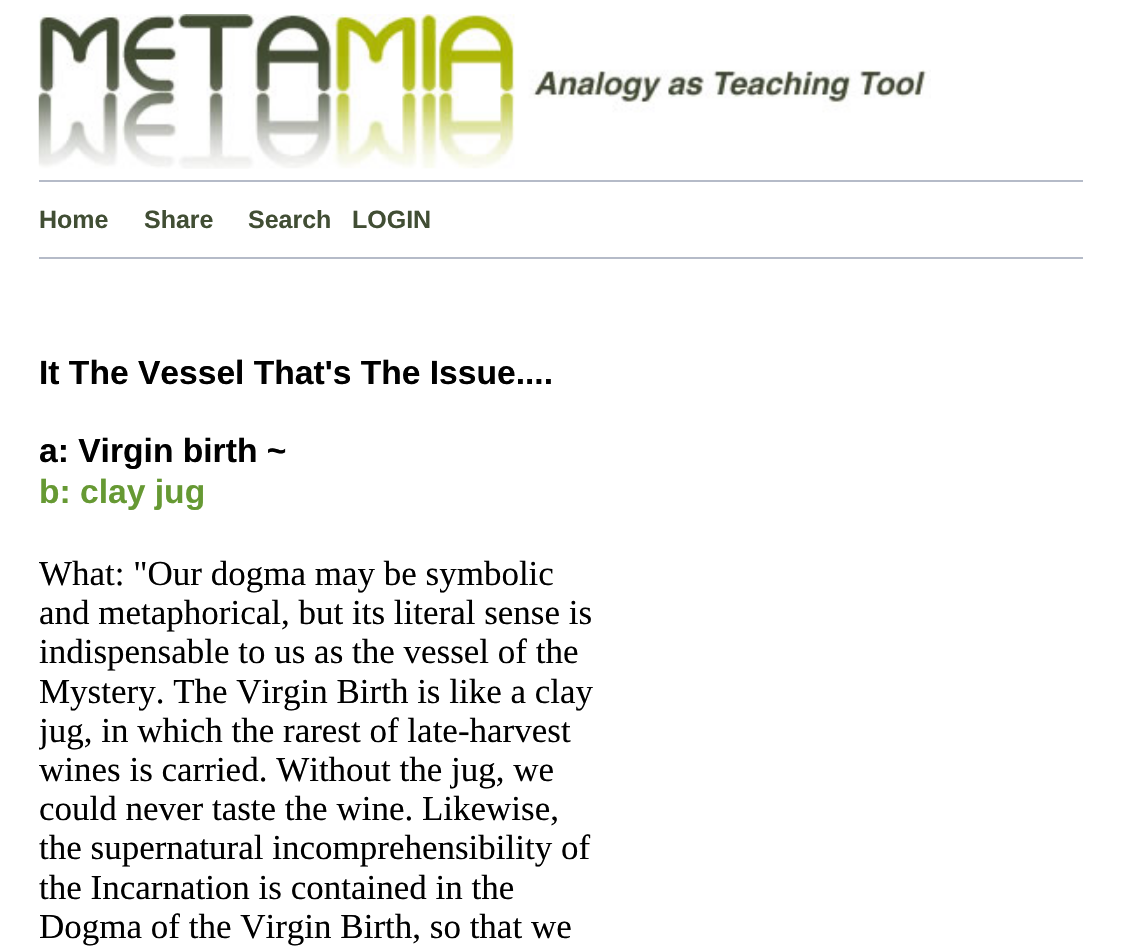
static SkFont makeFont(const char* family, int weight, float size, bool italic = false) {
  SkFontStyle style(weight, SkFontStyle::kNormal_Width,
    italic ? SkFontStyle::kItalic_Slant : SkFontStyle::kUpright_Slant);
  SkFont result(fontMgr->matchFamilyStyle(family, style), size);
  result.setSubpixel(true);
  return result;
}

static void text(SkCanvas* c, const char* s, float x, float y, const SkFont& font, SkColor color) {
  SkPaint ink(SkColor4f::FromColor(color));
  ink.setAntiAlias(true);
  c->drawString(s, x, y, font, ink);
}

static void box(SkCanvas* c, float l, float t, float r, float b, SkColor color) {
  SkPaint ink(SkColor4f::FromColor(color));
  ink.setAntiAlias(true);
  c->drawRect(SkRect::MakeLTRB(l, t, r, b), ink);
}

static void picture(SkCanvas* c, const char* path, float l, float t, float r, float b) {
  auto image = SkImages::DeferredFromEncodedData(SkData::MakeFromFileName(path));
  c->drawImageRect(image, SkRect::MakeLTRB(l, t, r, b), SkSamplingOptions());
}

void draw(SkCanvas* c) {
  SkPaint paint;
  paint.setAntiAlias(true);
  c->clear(0xffffffff);
  picture(c, "img_01.png", 38, 14, 931, 169);
  box(c, 39, 180, 1083, 182, 0xffb5bbc8);
  box(c, 39, 257, 1083, 259, 0xffb5bbc8);
  SkFont face1 = makeFont("Liberation Sans", 700, 25);
  text(c, "Home", 39, 228, face1, 0xff414e34);
  text(c, "Share", 144, 228, face1, 0xff414e34);
  text(c, "Search", 248, 228, face1, 0xff414e34);
  text(c, "LOGIN", 352, 228, face1, 0xff414e34);
  SkFont face2 = makeFont("Liberation Sans", 700, 33.6f);
  text(c, "It The Vessel That's The Issue....", 39, 384, face2, 0xff000000);
  text(c, "a: Virgin birth ~", 39, 462, face2, 0xff000000);
  text(c, "b: clay jug", 39, 503, face2, 0xff669933);
  SkFont face3 = makeFont("Liberation Serif", 400, 35);
  text(c, "What: \"Our dogma may be symbolic", 39, 585, face3, 0xff000000);
  text(c, "and metaphorical, but its literal sense is", 39, 624, face3, 0xff000000);
  text(c, "indispensable to us as the vessel of the", 39, 663, face3, 0xff000000);
  text(c, "Mystery. The Virgin Birth is like a clay", 39, 703, face3, 0xff000000);
  c->save();
  c->clipRect(SkRect::MakeLTRB(39, 14, 1094, 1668));
  text(c, "jug, in which the rarest of late-harvest", 39, 742, face3, 0xff000000);
  c->restore();
  text(c, "wines is carried. Without the jug, we", 39, 781, face3, 0xff000000);
  text(c, "could never taste the wine. Likewise,", 39, 820, face3, 0xff000000);
  text(c, "the supernatural incomprehensibility of", 39, 859, face3, 0xff000000);
  text(c, "the Incarnation is contained in the", 39, 899, face3, 0xff000000);
  text(c, "Dogma of the Virgin Birth, so that we", 39, 938, face3, 0xff000000);
}
